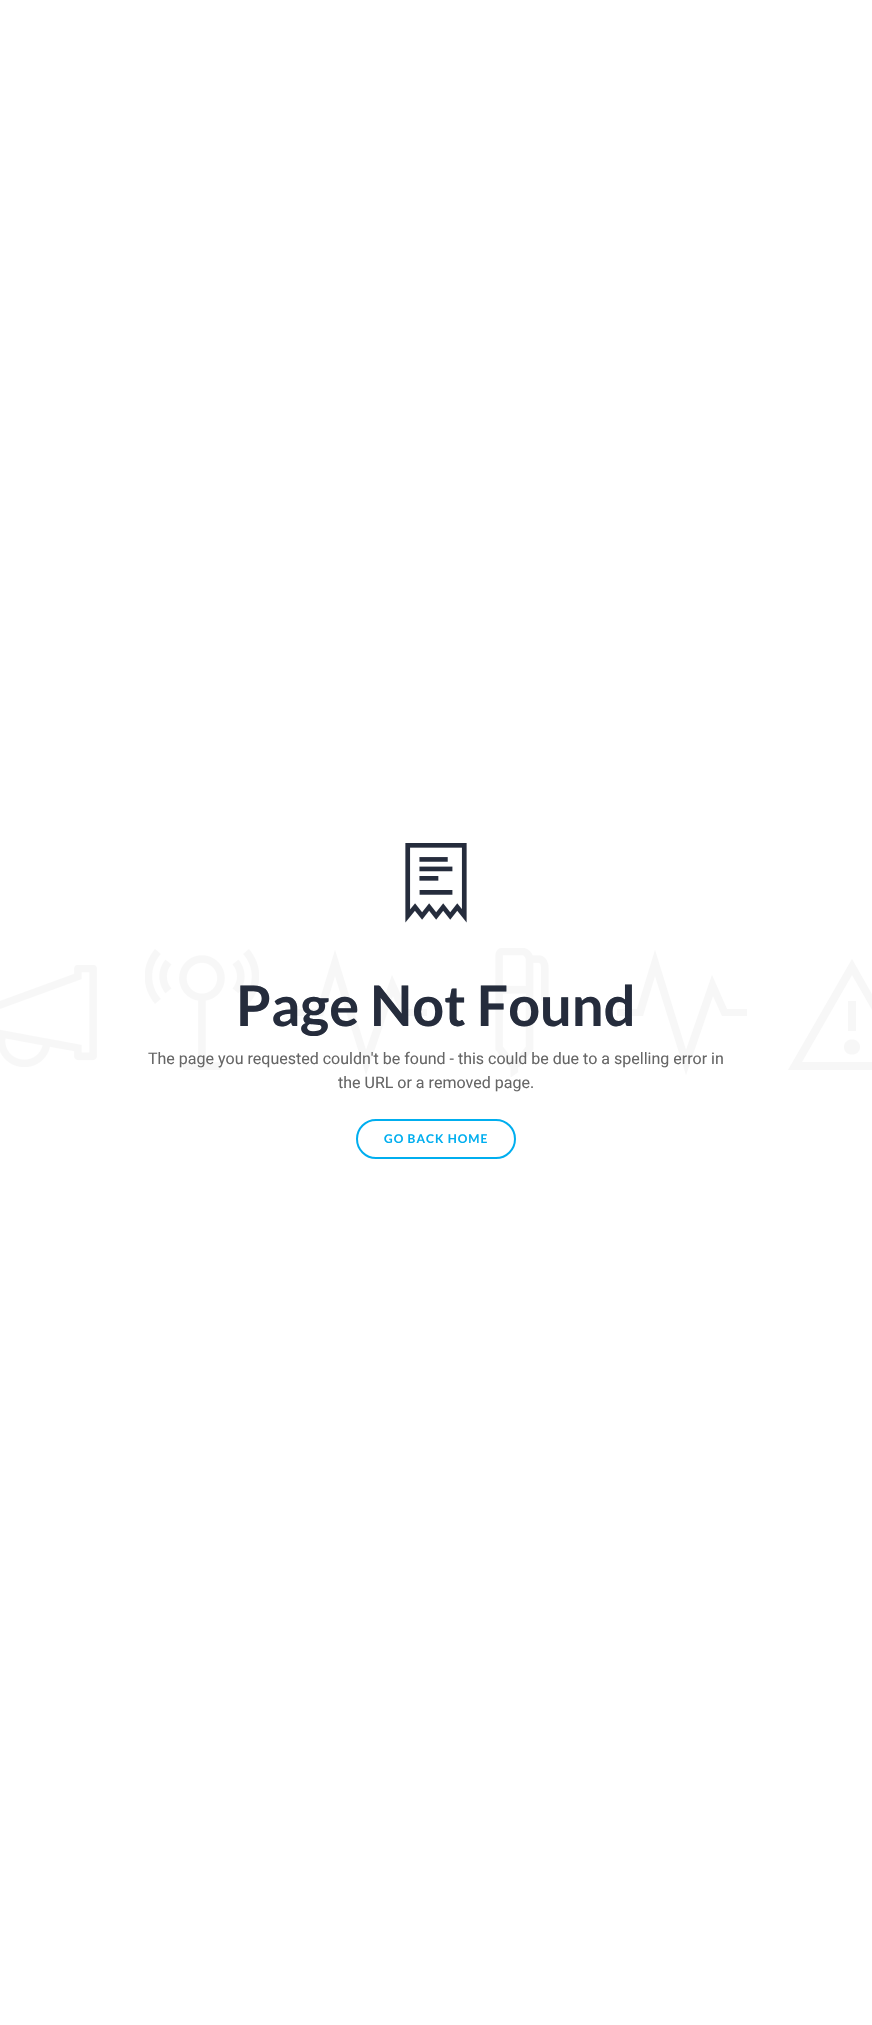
static SkFont makeFont(const char* family, int weight, float size, bool italic = false) {
  SkFontStyle style(weight, SkFontStyle::kNormal_Width,
    italic ? SkFontStyle::kItalic_Slant : SkFontStyle::kUpright_Slant);
  SkFont result(fontMgr->matchFamilyStyle(family, style), size);
  result.setSubpixel(true);
  return result;
}

static void text(SkCanvas* c, const char* s, float x, float y, const SkFont& font, SkColor color) {
  SkPaint ink(SkColor4f::FromColor(color));
  ink.setAntiAlias(true);
  c->drawString(s, x, y, font, ink);
}

static void spacedText(SkCanvas* c, const char* s, float x, float y, const SkFont& font, const SkPaint& ink, float letter, float word) {
  std::vector<SkGlyphID> glyphs(font.countText(s, strlen(s), SkTextEncoding::kUTF8));
  std::vector<float> xs(glyphs.size());
  font.textToGlyphs(s, strlen(s), SkTextEncoding::kUTF8, glyphs);
  font.getXPos(glyphs, xs, x);
  float extra = 0;
  for (size_t i = 0; i < glyphs.size(); i++) {
    xs[i] += extra;
    extra += letter + word * (glyphs[i] == font.unicharToGlyph(' '));
  }
  c->drawTextBlob(SkTextBlob::MakeFromPosHGlyphs(glyphs, xs, y, font), 0, 0, ink);
}

static void picture(SkCanvas* c, const char* path, float l, float t, float r, float b) {
  auto image = SkImages::DeferredFromEncodedData(SkData::MakeFromFileName(path));
  c->drawImageRect(image, SkRect::MakeLTRB(l, t, r, b), SkSamplingOptions());
}

void draw(SkCanvas* c) {
  SkPaint paint;
  paint.setAntiAlias(true);
  c->clear(0xffffffff);
  picture(c, "img_01.png", 0, 965, 97, 1067);
  picture(c, "img_02.png", 145, 949, 259, 1070);
  paint.setColor(0xfff7f7f7);
  c->drawPath(SkPathBuilder().moveTo(407, 1009).lineTo(392, 975).lineTo(366, 1050).lineTo(335, 950).lineTo(317, 1009).lineTo(297, 1009).lineTo(297, 1016).lineTo(323, 1016).lineTo(335, 976).lineTo(366, 1075).lineTo(393, 996).lineTo(402, 1016).lineTo(427, 1016).lineTo(427, 1009).close().detach(), paint);
  picture(c, "img_03.png", 495, 948, 549, 1077);
  c->drawPath(SkPathBuilder().moveTo(727, 1009).lineTo(712, 975).lineTo(686, 1050).lineTo(655, 950).lineTo(637, 1009).lineTo(617, 1009).lineTo(617, 1016).lineTo(643, 1016).lineTo(655, 976).lineTo(686, 1075).lineTo(713, 996).lineTo(722, 1016).lineTo(747, 1016).lineTo(747, 1009).close().detach(), paint);
  c->drawPath(SkPathBuilder().moveTo(852, 959).lineTo(788, 1070).lineTo(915, 1070).close().moveTo(852, 975).lineTo(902, 1062).lineTo(802, 1062).close().moveTo(856, 1031).lineTo(848, 1031).lineTo(848, 1001).lineTo(856, 1001).close().moveTo(860, 1047).cubicTo(860, 1057, 844, 1057, 844, 1047).cubicTo(844, 1037, 860, 1037, 860, 1047).close().detach(), paint);
  picture(c, "img_04.png", 405, 843, 467, 923);
  SkFont face1 = makeFont("Lato", 700, 56);
  text(c, "Page Not Found", 236, 1026, face1, 0xff252c3c);
  SkFont face2 = makeFont("Roboto", 400, 16);
  text(c, "The page you requested couldn't be found - this could be due to a spelling error in", 148, 1064, face2, 0xff666666);
  text(c, "the URL or a removed page.", 338, 1088, face2, 0xff666666);
  paint.setStyle(SkPaint::kStroke_Style);
  paint.setStrokeWidth(2);
  paint.setColor(0xff00aeef);
  c->drawRoundRect(SkRect::MakeLTRB(357, 1120, 515, 1158), 19, 19, paint);
  SkFont face3 = makeFont("Lato", 700, 12);
  paint.setStyle(SkPaint::kFill_Style);
  spacedText(c, "GO BACK HOME", 384, 1143, face3, paint, 1, 0);
}
